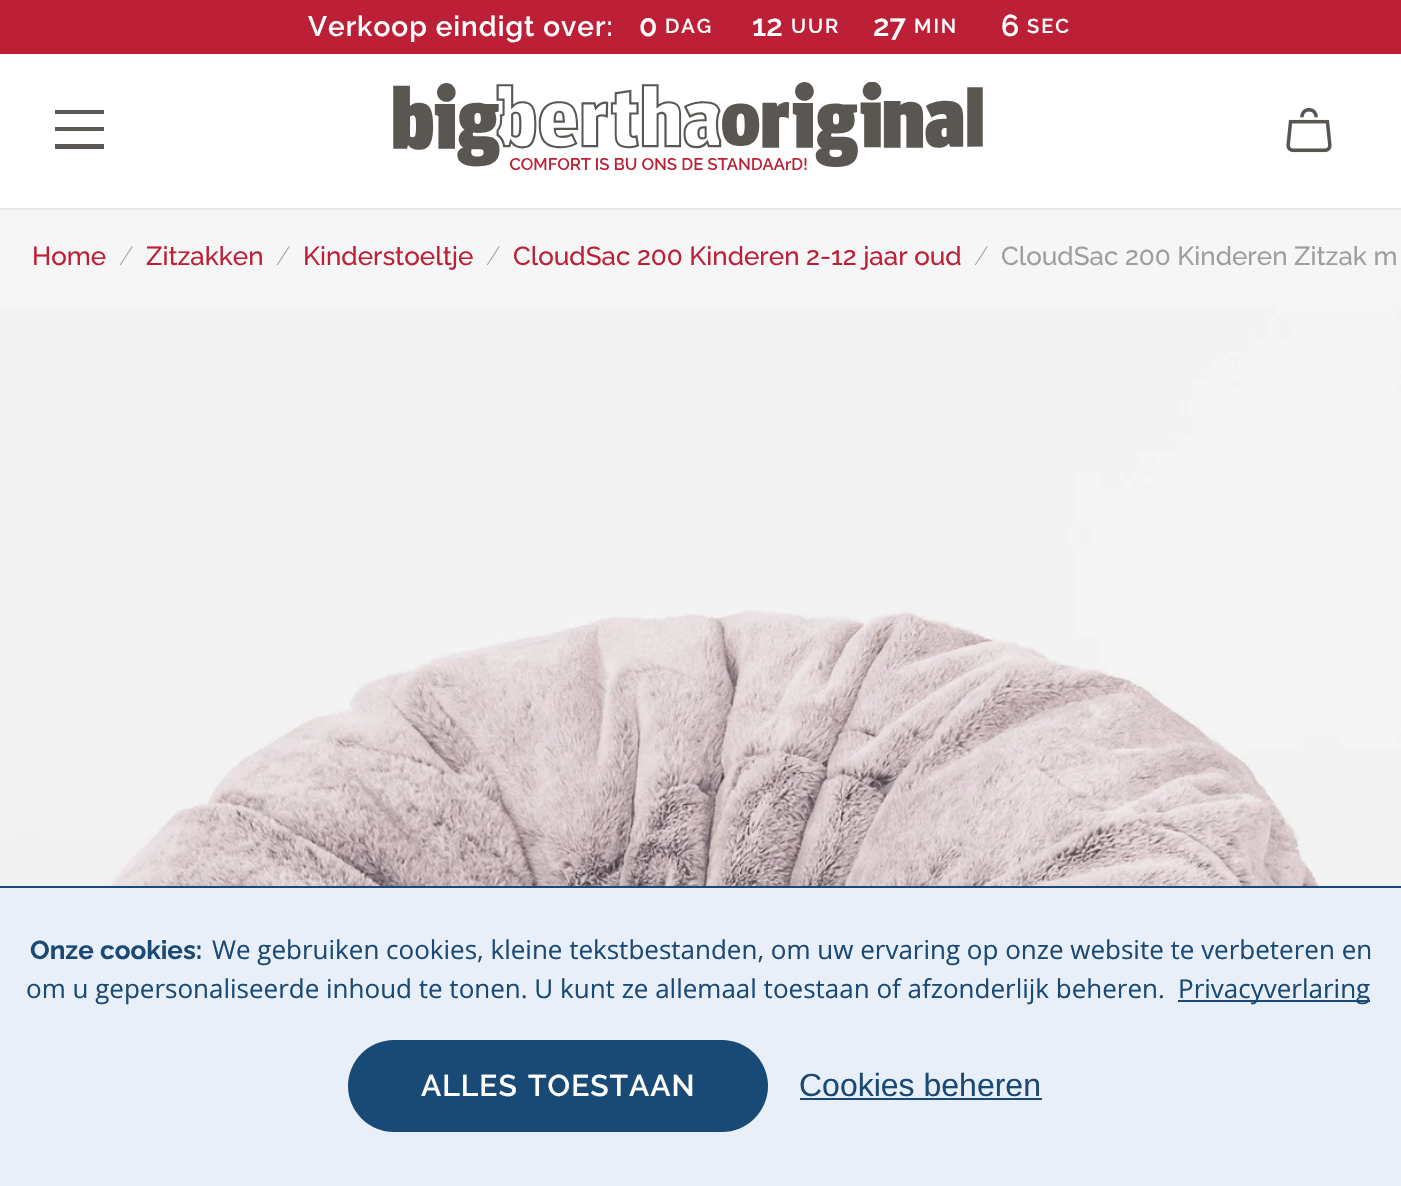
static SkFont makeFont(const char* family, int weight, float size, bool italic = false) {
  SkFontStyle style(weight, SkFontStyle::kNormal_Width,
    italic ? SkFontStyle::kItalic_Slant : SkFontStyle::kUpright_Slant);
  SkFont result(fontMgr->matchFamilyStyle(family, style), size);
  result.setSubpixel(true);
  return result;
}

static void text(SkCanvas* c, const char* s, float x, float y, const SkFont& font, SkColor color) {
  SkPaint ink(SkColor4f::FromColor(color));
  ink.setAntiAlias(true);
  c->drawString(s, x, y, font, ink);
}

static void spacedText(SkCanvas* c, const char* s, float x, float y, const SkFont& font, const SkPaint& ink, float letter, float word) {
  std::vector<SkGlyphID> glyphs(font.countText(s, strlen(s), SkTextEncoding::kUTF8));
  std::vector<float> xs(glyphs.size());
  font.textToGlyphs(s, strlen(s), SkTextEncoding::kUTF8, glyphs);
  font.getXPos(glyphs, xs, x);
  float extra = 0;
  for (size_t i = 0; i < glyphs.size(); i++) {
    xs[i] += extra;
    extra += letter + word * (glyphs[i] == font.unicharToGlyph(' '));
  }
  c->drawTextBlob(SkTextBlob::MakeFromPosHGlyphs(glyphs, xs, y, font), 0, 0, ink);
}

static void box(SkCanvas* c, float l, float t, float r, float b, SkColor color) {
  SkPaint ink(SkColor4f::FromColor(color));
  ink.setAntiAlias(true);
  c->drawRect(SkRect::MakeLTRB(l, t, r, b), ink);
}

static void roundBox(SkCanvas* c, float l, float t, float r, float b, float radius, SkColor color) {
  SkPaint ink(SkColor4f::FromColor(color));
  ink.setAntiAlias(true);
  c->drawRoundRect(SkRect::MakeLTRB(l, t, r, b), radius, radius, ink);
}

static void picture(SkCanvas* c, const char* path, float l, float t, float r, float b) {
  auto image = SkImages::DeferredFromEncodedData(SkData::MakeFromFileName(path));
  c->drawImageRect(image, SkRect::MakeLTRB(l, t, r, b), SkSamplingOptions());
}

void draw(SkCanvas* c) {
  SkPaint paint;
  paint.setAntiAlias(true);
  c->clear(0xffffffff);
  box(c, 0, 0, 1401, 54, 0xffbd2036);
  SkFont face1 = makeFont("Raleway", 600, 28);
  paint.setColor(0xffffffff);
  spacedText(c, "Verkoop eindigt over:", 308, 36, face1, paint, 1, 0);
  SkFont face2 = makeFont("Raleway", 600, 30);
  text(c, "0", 639, 36, face2, 0xffffffff);
  SkFont face3 = makeFont("Raleway", 600, 20);
  spacedText(c, "DAG", 665, 33, face3, paint, 2, 0);
  text(c, "12", 752, 36, face2, 0xffffffff);
  spacedText(c, "UUR", 791, 33, face3, paint, 2, 0);
  text(c, "27", 873, 36, face2, 0xffffffff);
  spacedText(c, "MIN", 914, 33, face3, paint, 2, 0);
  text(c, "6", 1001, 36, face2, 0xffffffff);
  spacedText(c, "SEC", 1027, 33, face3, paint, 2, 0);
  box(c, 0, 208, 1401, 210, 0xffebebeb);
  paint.setColor(0xff5c5853);
  c->drawPath(SkPathBuilder(SkPathFillType::kEvenOdd).moveTo(104, 114).lineTo(55, 114).lineTo(55, 110).lineTo(104, 110).close().moveTo(104, 131).lineTo(55, 131).lineTo(55, 127).lineTo(104, 127).close().moveTo(55, 149).lineTo(104, 149).lineTo(104, 144).lineTo(55, 144).close().detach(), paint);
  picture(c, "img_01.png", 393, 82, 983, 171);
  picture(c, "img_02.png", 1286, 108, 1332, 153);
  box(c, 0, 210, 1401, 306, 0xfff6f6f6);
  SkFont face4 = makeFont("Raleway", 500, 26);
  text(c, "Home", 32, 265, face4, 0xffbd2036);
  SkFont face5 = makeFont("Raleway", 200, 26);
  text(c, "/", 119, 265, face5, 0xff9e9e9e);
  text(c, "Zitzakken", 146, 265, face4, 0xffbd2036);
  text(c, "/", 276, 265, face5, 0xff9e9e9e);
  text(c, "Kinderstoeltje", 303, 265, face4, 0xffbd2036);
  text(c, "/", 486, 265, face5, 0xff9e9e9e);
  text(c, "CloudSac 200 Kinderen 2-12 jaar oud", 513, 265, face4, 0xffbd2036);
  text(c, "/", 974, 265, face5, 0xff9e9e9e);
  text(c, "CloudSac 200 Kinderen Zitzak m", 1001, 265, face4, 0xff9e9e9e);
  picture(c, "img_03.png", 0, 306, 1401, 886);
  box(c, 0, 888, 1401, 1186, 0xffe8eff9);
  box(c, 0, 886, 1401, 888, 0xff194a75);
  SkFont face6 = makeFont("Raleway", 700, 26);
  text(c, "Onze cookies:", 30, 959, face6, 0xff1b4975);
  SkFont face7 = makeFont("Open Sans", 400, 26);
  text(c, "We gebruiken cookies, kleine tekstbestanden, om uw ervaring op onze website te verbeteren en", 212, 959, face7, 0xff1b4975);
  text(c, "om u gepersonaliseerde inhoud te tonen. U kunt ze allemaal toestaan of afzonderlijk beheren.", 26, 998, face7, 0xff1b4975);
  box(c, 1178, 1000, 1370, 1002, 0xff1b4975);
  text(c, "Privacyverlaring", 1178, 998, face7, 0xff1b4975);
  roundBox(c, 348, 1040, 768, 1132, 46, 0xff194a75);
  paint.setColor(0xffffffff);
  spacedText(c, "ALLES TOESTAAN", 421, 1096, face2, paint, 1, 2);
  SkFont face8 = makeFont("Liberation Sans", 400, 32);
  text(c, "Cookies beheren", 799, 1096, face8, 0xff1b4975);
  box(c, 800, 1098, 1042, 1100, 0xff1b4975);
}
